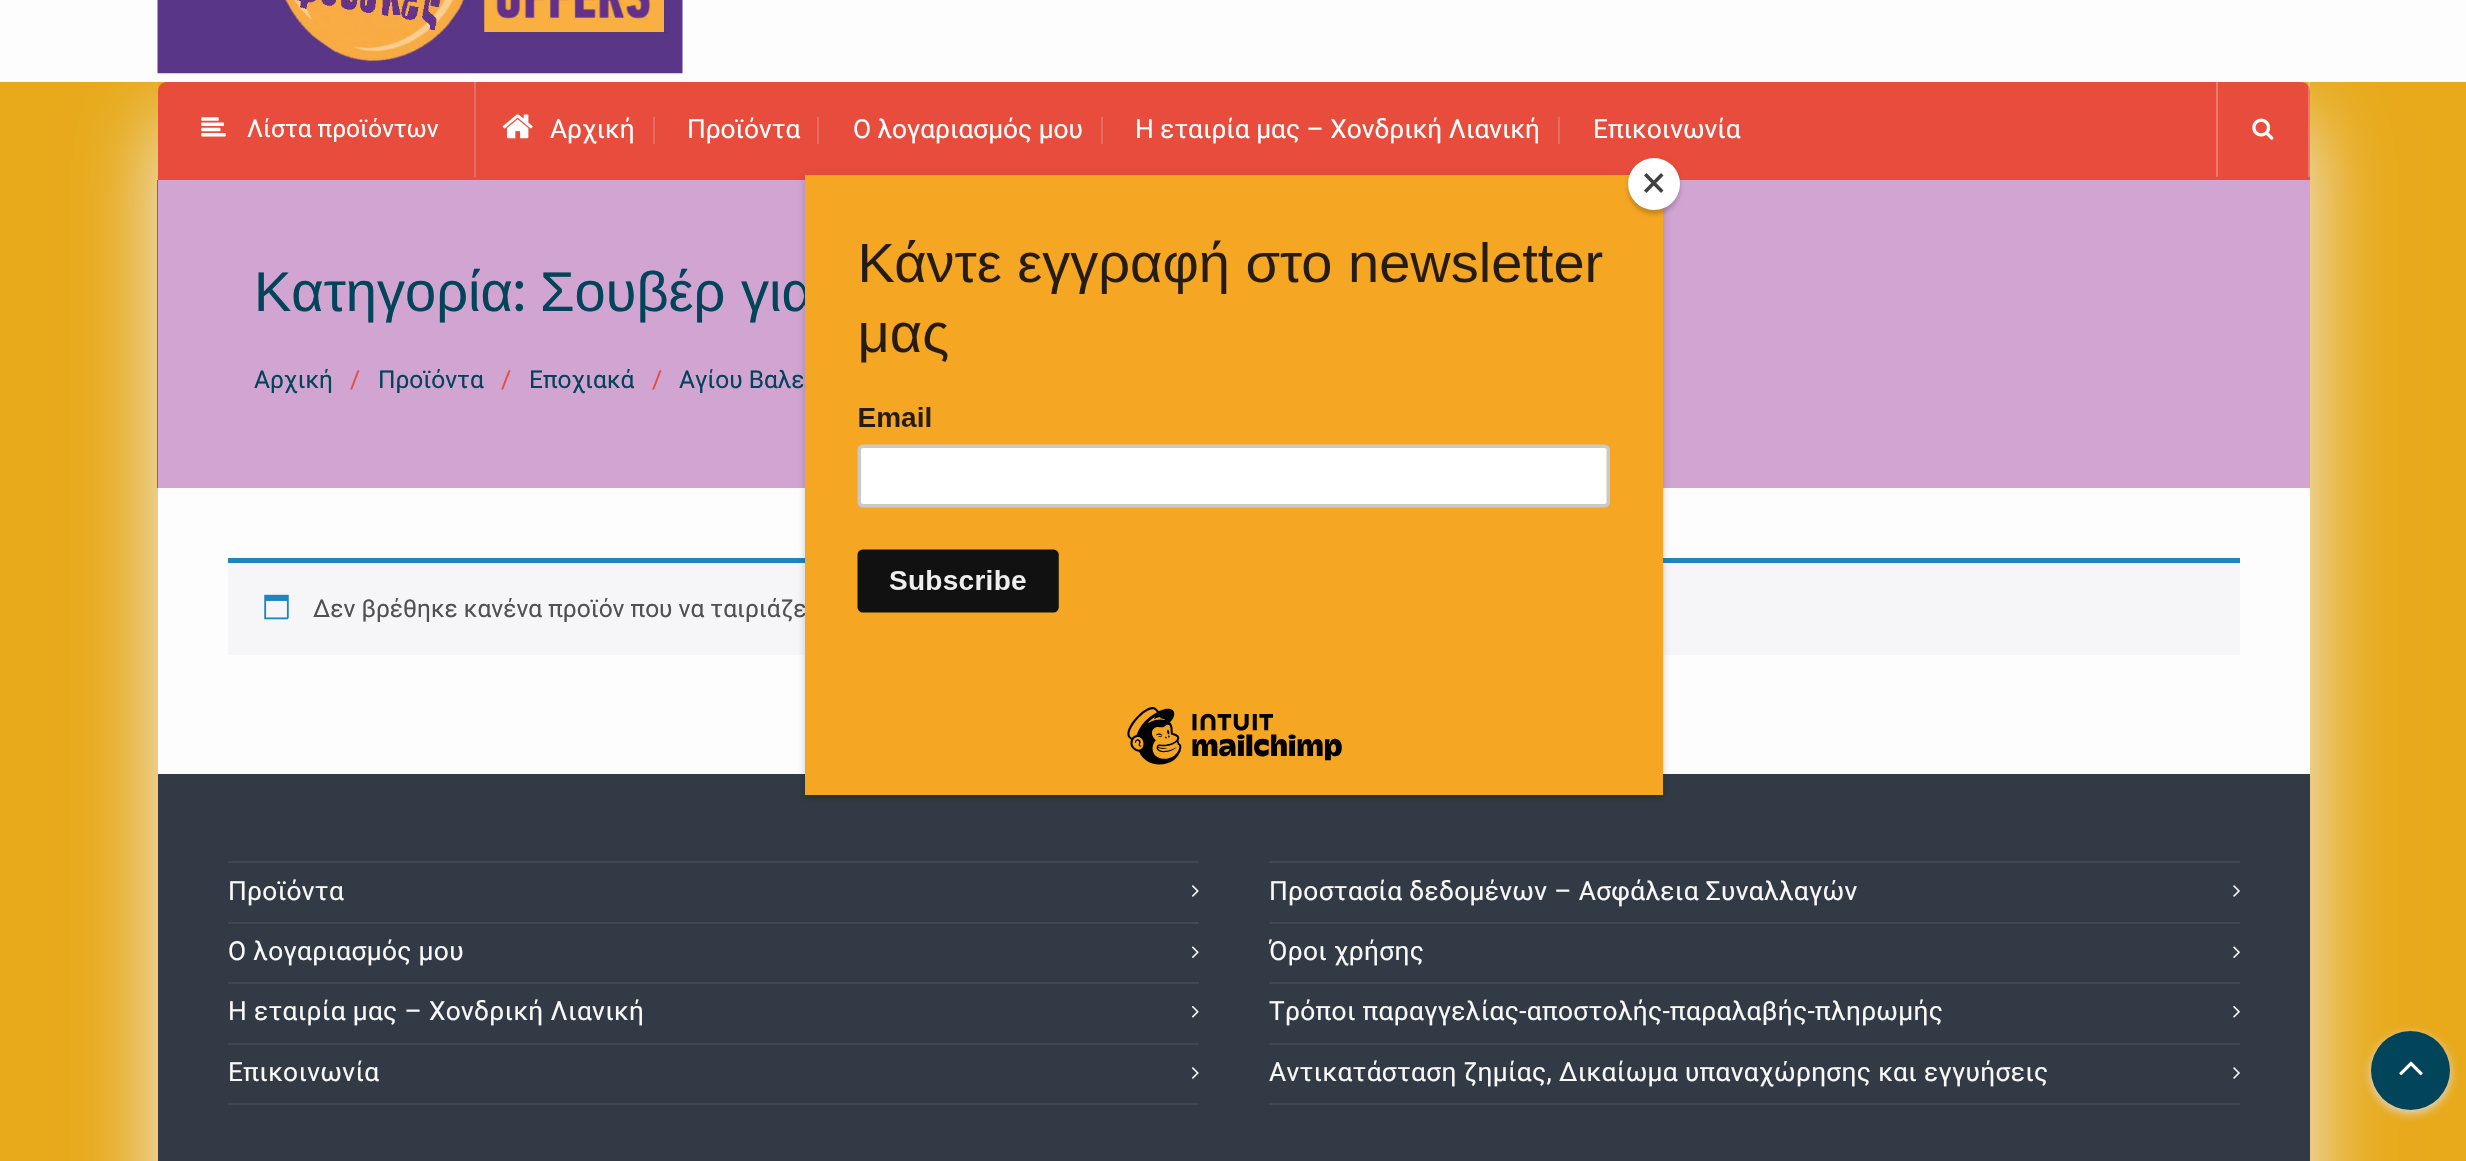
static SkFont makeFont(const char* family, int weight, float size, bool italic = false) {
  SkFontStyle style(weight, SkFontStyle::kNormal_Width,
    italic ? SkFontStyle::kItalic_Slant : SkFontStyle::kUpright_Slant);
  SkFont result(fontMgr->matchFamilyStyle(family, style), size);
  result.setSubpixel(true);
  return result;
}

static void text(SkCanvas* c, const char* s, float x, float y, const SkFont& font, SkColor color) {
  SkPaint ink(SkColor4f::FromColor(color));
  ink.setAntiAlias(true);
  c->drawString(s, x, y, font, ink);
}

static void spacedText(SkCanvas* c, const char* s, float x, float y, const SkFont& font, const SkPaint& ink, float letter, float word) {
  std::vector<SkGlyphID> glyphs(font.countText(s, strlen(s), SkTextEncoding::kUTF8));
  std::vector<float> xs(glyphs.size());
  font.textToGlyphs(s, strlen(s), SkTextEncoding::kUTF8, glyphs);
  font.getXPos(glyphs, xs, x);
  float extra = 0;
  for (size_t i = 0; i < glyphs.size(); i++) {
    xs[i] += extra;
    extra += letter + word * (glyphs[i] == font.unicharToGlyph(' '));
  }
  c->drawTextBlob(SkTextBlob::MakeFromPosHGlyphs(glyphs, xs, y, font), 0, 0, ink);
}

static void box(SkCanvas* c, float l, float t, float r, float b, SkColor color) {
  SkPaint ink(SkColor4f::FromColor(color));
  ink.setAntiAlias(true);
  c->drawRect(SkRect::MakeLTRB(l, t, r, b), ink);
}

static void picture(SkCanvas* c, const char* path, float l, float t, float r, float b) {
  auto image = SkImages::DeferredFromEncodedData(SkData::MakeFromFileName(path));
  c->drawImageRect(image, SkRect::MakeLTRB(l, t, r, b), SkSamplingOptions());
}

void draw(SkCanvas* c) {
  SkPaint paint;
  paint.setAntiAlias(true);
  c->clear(0xffe8aa1b);
  c->save();
  c->clipPath(SkPathBuilder(SkPathFillType::kEvenOdd).moveTo(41, 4).lineTo(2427, 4).lineTo(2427, 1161).lineTo(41, 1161).close().moveTo(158, 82).lineTo(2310, 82).lineTo(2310, 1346).lineTo(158, 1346).close().detach(), true);
  paint.setColor(0xffefefef);
  paint.setMaskFilter(SkMaskFilter::MakeBlur(kNormal_SkBlurStyle, 38.5f));
  c->drawRect(SkRect::MakeLTRB(158, 121, 2310, 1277), paint);
  paint.setMaskFilter(nullptr);
  c->restore();
  box(c, 0, 0, 2466, 82, 0xfffdfdfd);
  picture(c, "img_01.png", 157, 0, 683, 74);
  paint.setColor(0xffe74c3c);
  c->drawPath(SkPathBuilder().moveTo(167, 82).lineTo(2301, 82).cubicTo(2306, 82, 2310, 86, 2310, 91).lineTo(2310, 180).lineTo(158, 180).lineTo(158, 91).cubicTo(158, 86, 162, 82, 167, 82).close().detach(), paint);
  box(c, 474, 82, 476, 177, 0xffe36e62);
  picture(c, "img_02.png", 201, 117, 226, 137);
  SkFont face1 = makeFont("Roboto", 400, 24.5f);
  text(c, "Λίστα προϊόντων", 247, 137, face1, 0xffffffff);
  picture(c, "img_03.png", 502, 114, 533, 139);
  SkFont face2 = makeFont("Roboto", 400, 26.25f);
  text(c, "Αρχική", 550, 138, face2, 0xffffffff);
  box(c, 653, 117, 655, 144, 0xffe36e62);
  text(c, "Προϊόντα", 687, 138, face2, 0xffffffff);
  box(c, 817, 117, 819, 144, 0xffe36e62);
  text(c, "Ο λογαριασμός μου", 853, 138, face2, 0xffffffff);
  box(c, 1101, 117, 1103, 144, 0xffe36e62);
  text(c, "H εταιρία μας – Χονδρική Λιανική", 1135, 138, face2, 0xffffffff);
  box(c, 1558, 117, 1560, 144, 0xffe36e62);
  text(c, "Επικοινωνία", 1593, 138, face2, 0xffffffff);
  box(c, 2308, 82, 2310, 177, 0x3dffffff);
  box(c, 2216, 82, 2218, 177, 0xffed776b);
  picture(c, "img_04.png", 2252, 118, 2274, 140);
  box(c, 157, 180, 158, 488, 0xffa349a3);
  box(c, 158, 180, 2310, 488, 0xffd1a4d1);
  SkFont face3 = makeFont("Liberation Sans", 400, 56);
  text(c, "Κατηγορία", 254, 311, face3, 0xff024459);
  SkFont face4 = makeFont("Montserrat", 500, 56);
  text(c, ":", 513, 311, face4, 0xff024459);
  text(c, "Σουβέρ για", 540, 311, face3, 0xff024459);
  text(c, "Αρχική", 254, 388, face1, 0xff024459);
  text(c, "/", 350, 388, face1, 0xffe74c3c);
  text(c, "Προϊόντα", 378, 388, face1, 0xff024459);
  text(c, "/", 501, 388, face1, 0xffe74c3c);
  text(c, "Εποχιακά", 529, 388, face1, 0xff024459);
  text(c, "/", 652, 388, face1, 0xffe74c3c);
  text(c, "Αγίου Βαλε", 679, 388, face1, 0xff024459);
  box(c, 158, 488, 2310, 774, 0xfffdfdfd);
  box(c, 228, 563, 2240, 655, 0xfff6f5f8);
  box(c, 228, 558, 2240, 563, 0xff1e85be);
  picture(c, "img_05.png", 264, 594, 289, 620);
  text(c, "Δεν βρέθηκε κανένα προϊόν που να ταιριάζε", 313, 617, face1, 0xff515151);
  box(c, 158, 774, 2310, 1161, 0xff323a45);
  box(c, 228, 861, 1199, 863, 0xff404852);
  paint.setColor(0xfff9f9f9);
  spacedText(c, "Προϊόντα", 228, 900, face2, paint, 0.35f, 0);
  picture(c, "img_06.png", 1192, 885, 1199, 897);
  box(c, 228, 922, 1199, 924, 0xff404852);
  spacedText(c, "Ο λογαριασμός μου", 228, 960, face2, paint, 0.35f, 0);
  picture(c, "img_07.png", 1191, 946, 1199, 958);
  box(c, 228, 982, 1199, 984, 0xff404852);
  spacedText(c, "H εταιρία μας – Χονδρική Λιανική", 228, 1020, face2, paint, 0.35f, 0);
  picture(c, "img_08.png", 1191, 1006, 1199, 1018);
  box(c, 228, 1043, 1199, 1045, 0xff404852);
  box(c, 228, 1103, 1199, 1105, 0xff404852);
  spacedText(c, "Επικοινωνία", 228, 1081, face2, paint, 0.35f, 0);
  picture(c, "img_06.png", 1192, 1067, 1199, 1079);
  box(c, 1269, 861, 2240, 863, 0xff404852);
  spacedText(c, "Προστασία δεδομένων – Ασφάλεια Συναλλαγών", 1269, 900, face2, paint, 0.35f, 0);
  picture(c, "img_09.png", 2233, 885, 2240, 897);
  box(c, 1269, 922, 2240, 924, 0xff404852);
  spacedText(c, "Όροι χρήσης", 1269, 960, face2, paint, 0.35f, 0);
  picture(c, "img_10.png", 2233, 946, 2240, 958);
  box(c, 1269, 982, 2240, 984, 0xff404852);
  spacedText(c, "Τρόποι παραγγελίας-αποστολής-παραλαβής-πληρωμής", 1269, 1020, face2, paint, 0.35f, 0);
  picture(c, "img_11.png", 2233, 1006, 2240, 1018);
  box(c, 1269, 1043, 2240, 1045, 0xff404852);
  box(c, 1269, 1103, 2240, 1105, 0xff404852);
  spacedText(c, "Αντικατάσταση ζημίας, Δικαίωμα υπαναχώρησης και εγγυήσεις", 1269, 1081, face2, paint, 0.35f, 0);
  picture(c, "img_09.png", 2233, 1067, 2240, 1079);
  paint.setColor(0x33000000);
  paint.setMaskFilter(SkMaskFilter::MakeBlur(kNormal_SkBlurStyle, 3.5f));
  c->drawRect(SkRect::MakeLTRB(805, 179, 1663, 798), paint);
  paint.setMaskFilter(nullptr);
  picture(c, "img_12.png", 805, 175, 1663, 795);
  paint.setMaskFilter(SkMaskFilter::MakeBlur(kNormal_SkBlurStyle, 2));
  c->drawRoundRect(SkRect::MakeLTRB(1628, 161, 1680, 214), 26, 26, paint);
  paint.setMaskFilter(nullptr);
  paint.setColor(0xffffffff);
  c->drawCircle(1654, 184, 26, paint);
  paint.setColor(0xff414141);
  c->drawPath(SkPathBuilder().moveTo(1661, 173).lineTo(1663.5f, 175.5f).lineTo(1646.5f, 193).lineTo(1644, 190.5f).close().detach(), paint);
  c->drawPath(SkPathBuilder().moveTo(1644, 175.5f).lineTo(1646.5f, 173).lineTo(1663.5f, 190.5f).lineTo(1661, 193).close().detach(), paint);
  paint.setColor(0xffdadada);
  paint.setMaskFilter(SkMaskFilter::MakeBlur(kNormal_SkBlurStyle, 5));
  c->drawRoundRect(SkRect::MakeLTRB(2371, 1034, 2450, 1113), 39.5f, 39.5f, paint);
  paint.setMaskFilter(nullptr);
  paint.setColor(0xff024459);
  c->drawCircle(2410.5f, 1070.5f, 39.5f, paint);
  picture(c, "img_13.png", 2399, 1061, 2423, 1076);
}
